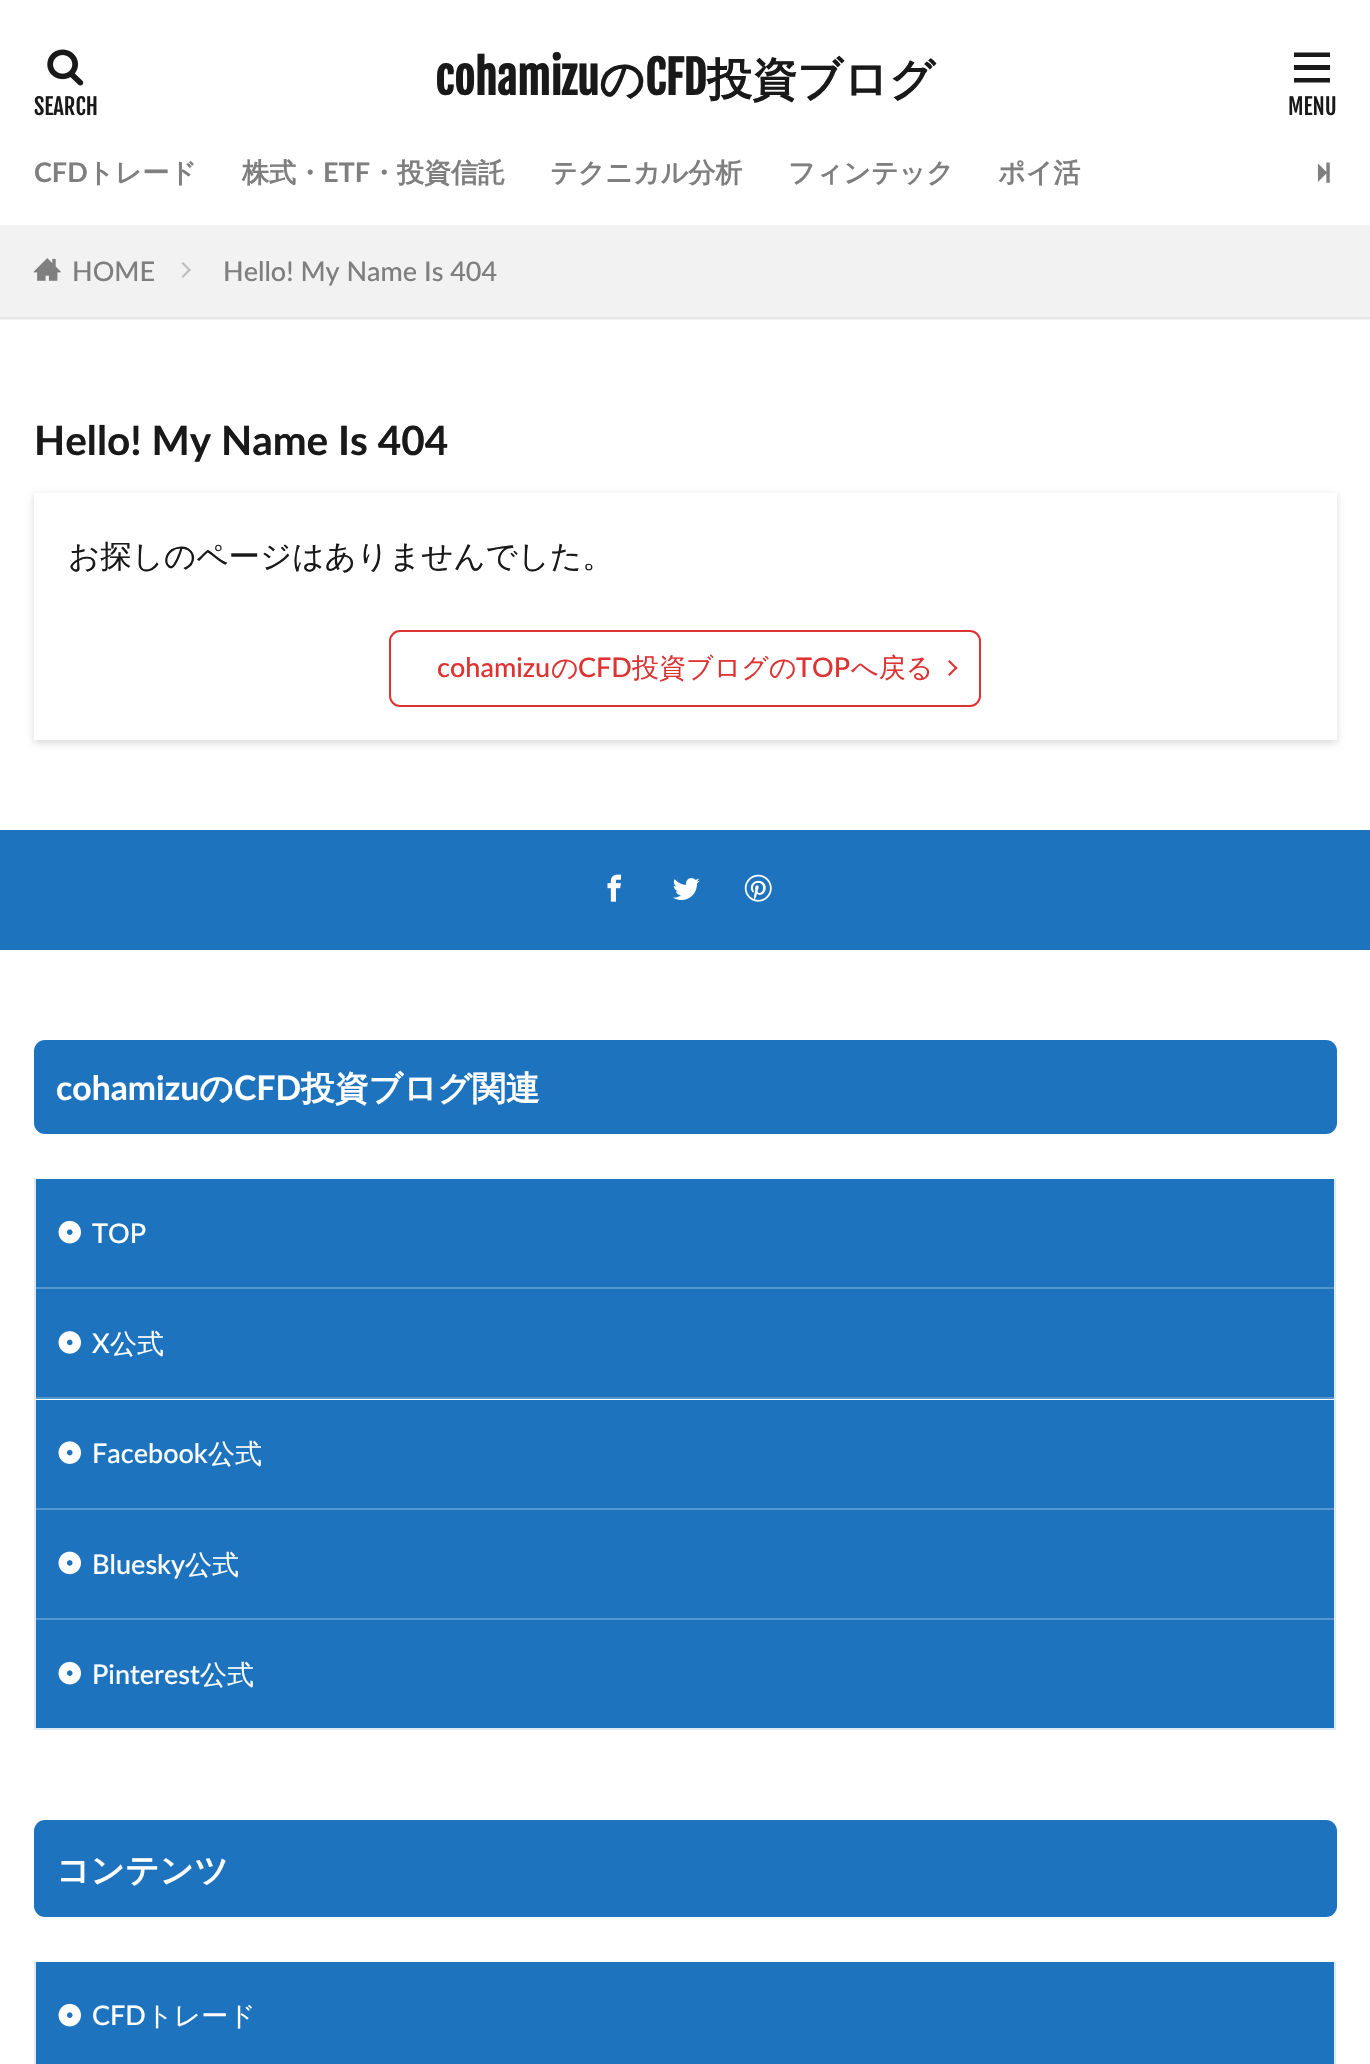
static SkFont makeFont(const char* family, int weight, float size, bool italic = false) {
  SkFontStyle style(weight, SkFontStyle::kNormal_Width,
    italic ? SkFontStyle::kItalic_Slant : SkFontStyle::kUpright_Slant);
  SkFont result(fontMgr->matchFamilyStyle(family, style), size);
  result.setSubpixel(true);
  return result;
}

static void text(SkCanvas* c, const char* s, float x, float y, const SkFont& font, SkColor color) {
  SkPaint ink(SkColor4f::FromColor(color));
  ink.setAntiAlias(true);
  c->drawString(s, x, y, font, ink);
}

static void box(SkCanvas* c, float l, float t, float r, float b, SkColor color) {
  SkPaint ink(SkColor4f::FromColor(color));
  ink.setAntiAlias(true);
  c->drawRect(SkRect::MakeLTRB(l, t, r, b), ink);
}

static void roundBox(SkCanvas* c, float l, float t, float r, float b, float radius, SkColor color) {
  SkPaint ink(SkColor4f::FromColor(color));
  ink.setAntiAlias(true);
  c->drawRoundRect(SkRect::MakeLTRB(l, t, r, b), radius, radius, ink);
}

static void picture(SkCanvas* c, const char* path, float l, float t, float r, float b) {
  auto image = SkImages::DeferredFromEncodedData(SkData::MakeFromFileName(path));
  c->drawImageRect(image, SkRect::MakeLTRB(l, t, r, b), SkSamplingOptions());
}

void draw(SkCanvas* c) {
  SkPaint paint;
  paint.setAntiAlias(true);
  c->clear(0xffffffff);
  SkFont face1 = makeFont("Fjalla One", 700, 45);
  text(c, "cohamizu", 435, 95, face1, 0xff191919);
  SkFont face2 = makeFont("WenQuanYi Zen Hei", 700, 45);
  text(c, "の", 599, 95, face2, 0xff191919);
  text(c, "CFD", 645, 95, face1, 0xff191919);
  text(c, "投資ブログ", 707, 95, face2, 0xff191919);
  picture(c, "img_01.png", 47, 49, 84, 86);
  SkFont face3 = makeFont("Fjalla One", 400, 22.5f);
  text(c, "SEARCH", 34, 115, face3, 0xff191919);
  paint.setColor(0xff191919);
  c->drawPath(SkPathBuilder().moveTo(1294, 52.5f).lineTo(1330, 52.5f).lineTo(1330, 57).lineTo(1294, 57).close().moveTo(1294, 65).lineTo(1330, 65).lineTo(1330, 70).lineTo(1294, 70).close().moveTo(1294, 78).lineTo(1330, 78).lineTo(1330, 82.5f).lineTo(1294, 82.5f).close().detach(), paint);
  text(c, "MENU", 1288, 115, face3, 0xff191919);
  SkFont face4 = makeFont("Lato", 700, 27);
  text(c, "CFD", 34, 182, face4, 0xff7f7f7f);
  SkFont face5 = makeFont("WenQuanYi Zen Hei", 700, 27);
  text(c, "トレード", 87, 182, face5, 0xff7f7f7f);
  text(c, "株式・", 242, 182, face5, 0xff7f7f7f);
  text(c, "ETF", 323, 182, face4, 0xff7f7f7f);
  text(c, "・投資信託", 370, 182, face5, 0xff7f7f7f);
  text(c, "テクニカル分析", 550, 182, face5, 0xff7f7f7f);
  text(c, "フィンテック", 788, 182, face5, 0xff7f7f7f);
  text(c, "ポイ活", 998, 182, face5, 0xff7f7f7f);
  picture(c, "img_02.png", 1317, 162, 1330, 183);
  box(c, 0, 225, 1370, 320, 0xfff2f2f2);
  box(c, 0, 317, 1370, 319, 0xffe6e6e6);
  picture(c, "img_03.png", 33, 258, 61, 281);
  SkFont face6 = makeFont("Lato", 500, 27);
  text(c, "HOME", 72, 281, face6, 0xff7f7f7f);
  paint.setColor(0xffbfbfbf);
  c->drawPath(SkPathBuilder().moveTo(183, 262).lineTo(191, 270).lineTo(189.5f, 271.5f).lineTo(181.5f, 263.5f).close().detach(), paint);
  c->drawPath(SkPathBuilder().moveTo(189.5f, 268.5f).lineTo(191, 270).lineTo(183, 278).lineTo(181.5f, 276.5f).close().detach(), paint);
  text(c, "Hello! My Name Is 404", 223, 281, face6, 0xff7f7f7f);
  SkFont face7 = makeFont("Lato", 700, 40.5f);
  text(c, "Hello! My Name Is 404", 34, 455, face7, 0xff191919);
  paint.setColor(0x26000000);
  paint.setMaskFilter(SkMaskFilter::MakeBlur(kNormal_SkBlurStyle, 3.5f));
  c->drawRect(SkRect::MakeLTRB(34, 495, 1337, 743), paint);
  paint.setMaskFilter(nullptr);
  box(c, 34, 493, 1337, 740, 0xffffffff);
  SkFont face8 = makeFont("WenQuanYi Zen Hei", 500, 31.5f);
  text(c, "お探しのページはありませんでした。", 68, 567, face8, 0xff191919);
  paint.setStyle(SkPaint::kStroke_Style);
  paint.setStrokeWidth(2);
  paint.setColor(0xffdd3333);
  c->drawRoundRect(SkRect::MakeLTRB(390, 631, 980, 706), 10, 10, paint);
  text(c, "cohamizu", 437, 677, face6, 0xffdd3333);
  SkFont face9 = makeFont("WenQuanYi Zen Hei", 500, 27);
  text(c, "の", 551, 677, face9, 0xffdd3333);
  text(c, "CFD", 578, 677, face6, 0xffdd3333);
  text(c, "投資ブログの", 632, 677, face9, 0xffdd3333);
  text(c, "TOP", 796, 677, face6, 0xffdd3333);
  text(c, "へ戻る", 851, 677, face9, 0xffdd3333);
  paint.setStyle(SkPaint::kFill_Style);
  c->drawPath(SkPathBuilder().moveTo(949.5f, 660).lineTo(957.5f, 668).lineTo(956, 669.5f).lineTo(948, 661.5f).close().detach(), paint);
  c->drawPath(SkPathBuilder().moveTo(956, 666.5f).lineTo(957.5f, 668).lineTo(949.5f, 676).lineTo(948, 674.5f).close().detach(), paint);
  box(c, 0, 830, 1370, 950, 0xff1e73be);
  picture(c, "img_04.png", 607, 874, 621, 902);
  picture(c, "img_05.png", 673, 878, 700, 900);
  picture(c, "img_06.png", 744, 874, 772, 902);
  roundBox(c, 34, 1040, 1337, 1134, 11, 0xff1e73be);
  SkFont face10 = makeFont("Lato", 700, 33.75f);
  text(c, "cohamizu", 56, 1100, face10, 0xffffffff);
  SkFont face11 = makeFont("WenQuanYi Zen Hei", 700, 33.75f);
  text(c, "の", 199, 1100, face11, 0xffffffff);
  text(c, "CFD", 234, 1100, face10, 0xffffffff);
  text(c, "投資ブログ関連", 301, 1100, face11, 0xffffffff);
  paint.setColor(0xffddeaf5);
  c->drawPath(SkPathBuilder().moveTo(1336, 1179).lineTo(1336, 1730).lineTo(1334, 1728).lineTo(1334, 1179).close().detach(), paint);
  paint.setColor(0x261e73be);
  c->drawPath(SkPathBuilder().moveTo(1336, 1730).lineTo(34, 1730).lineTo(36, 1728).lineTo(1334, 1728).close().detach(), paint);
  c->drawPath(SkPathBuilder().moveTo(34, 1730).lineTo(34, 1179).lineTo(36, 1179).lineTo(36, 1728).close().detach(), paint);
  box(c, 36, 1179, 1334, 1287, 0xff1e73be);
  picture(c, "img_07.png", 58, 1220, 81, 1244);
  text(c, "TOP", 92, 1243, face6, 0xffffffff);
  box(c, 36, 1287, 1334, 1289, 0xff5696ce);
  box(c, 36, 1289, 1334, 1397, 0xff1e73be);
  picture(c, "img_08.png", 58, 1331, 81, 1354);
  text(c, "X", 92, 1353, face6, 0xffffffff);
  text(c, "公式", 110, 1353, face9, 0xffffffff);
  box(c, 36, 1397, 1334, 1399, 0xff5696ce);
  box(c, 36, 1400, 1334, 1508, 0xff1e73be);
  picture(c, "img_09.png", 58, 1441, 81, 1464);
  text(c, "Facebook", 92, 1463, face6, 0xffffffff);
  text(c, "公式", 208, 1463, face9, 0xffffffff);
  box(c, 36, 1508, 1334, 1510, 0xff5696ce);
  box(c, 36, 1510, 1334, 1618, 0xff1e73be);
  picture(c, "img_10.png", 58, 1551, 81, 1575);
  text(c, "Bluesky", 92, 1574, face6, 0xffffffff);
  text(c, "公式", 185, 1574, face9, 0xffffffff);
  box(c, 36, 1618, 1334, 1620, 0xff5696ce);
  box(c, 36, 1620, 1334, 1728, 0xff1e73be);
  picture(c, "img_07.png", 58, 1661, 81, 1685);
  text(c, "Pinterest", 92, 1684, face6, 0xffffffff);
  text(c, "公式", 200, 1684, face9, 0xffffffff);
  roundBox(c, 34, 1820, 1337, 1917, 11, 0xff1e73be);
  text(c, "コンテンツ", 56, 1882, face11, 0xffffffff);
  paint.setColor(0xffddeaf5);
  c->drawPath(SkPathBuilder().moveTo(1336, 1962).lineTo(1336, 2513).lineTo(1334, 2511).lineTo(1334, 1962).close().detach(), paint);
  c->drawPath(SkPathBuilder().moveTo(34, 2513).lineTo(34, 1962).lineTo(36, 1962).lineTo(36, 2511).close().detach(), paint);
  box(c, 36, 1962, 1334, 2064, 0xff1e73be);
  picture(c, "img_07.png", 58, 2003, 81, 2027);
  text(c, "CFD", 92, 2025, face6, 0xffffffff);
  text(c, "トレード", 146, 2025, face9, 0xffffffff);
}
